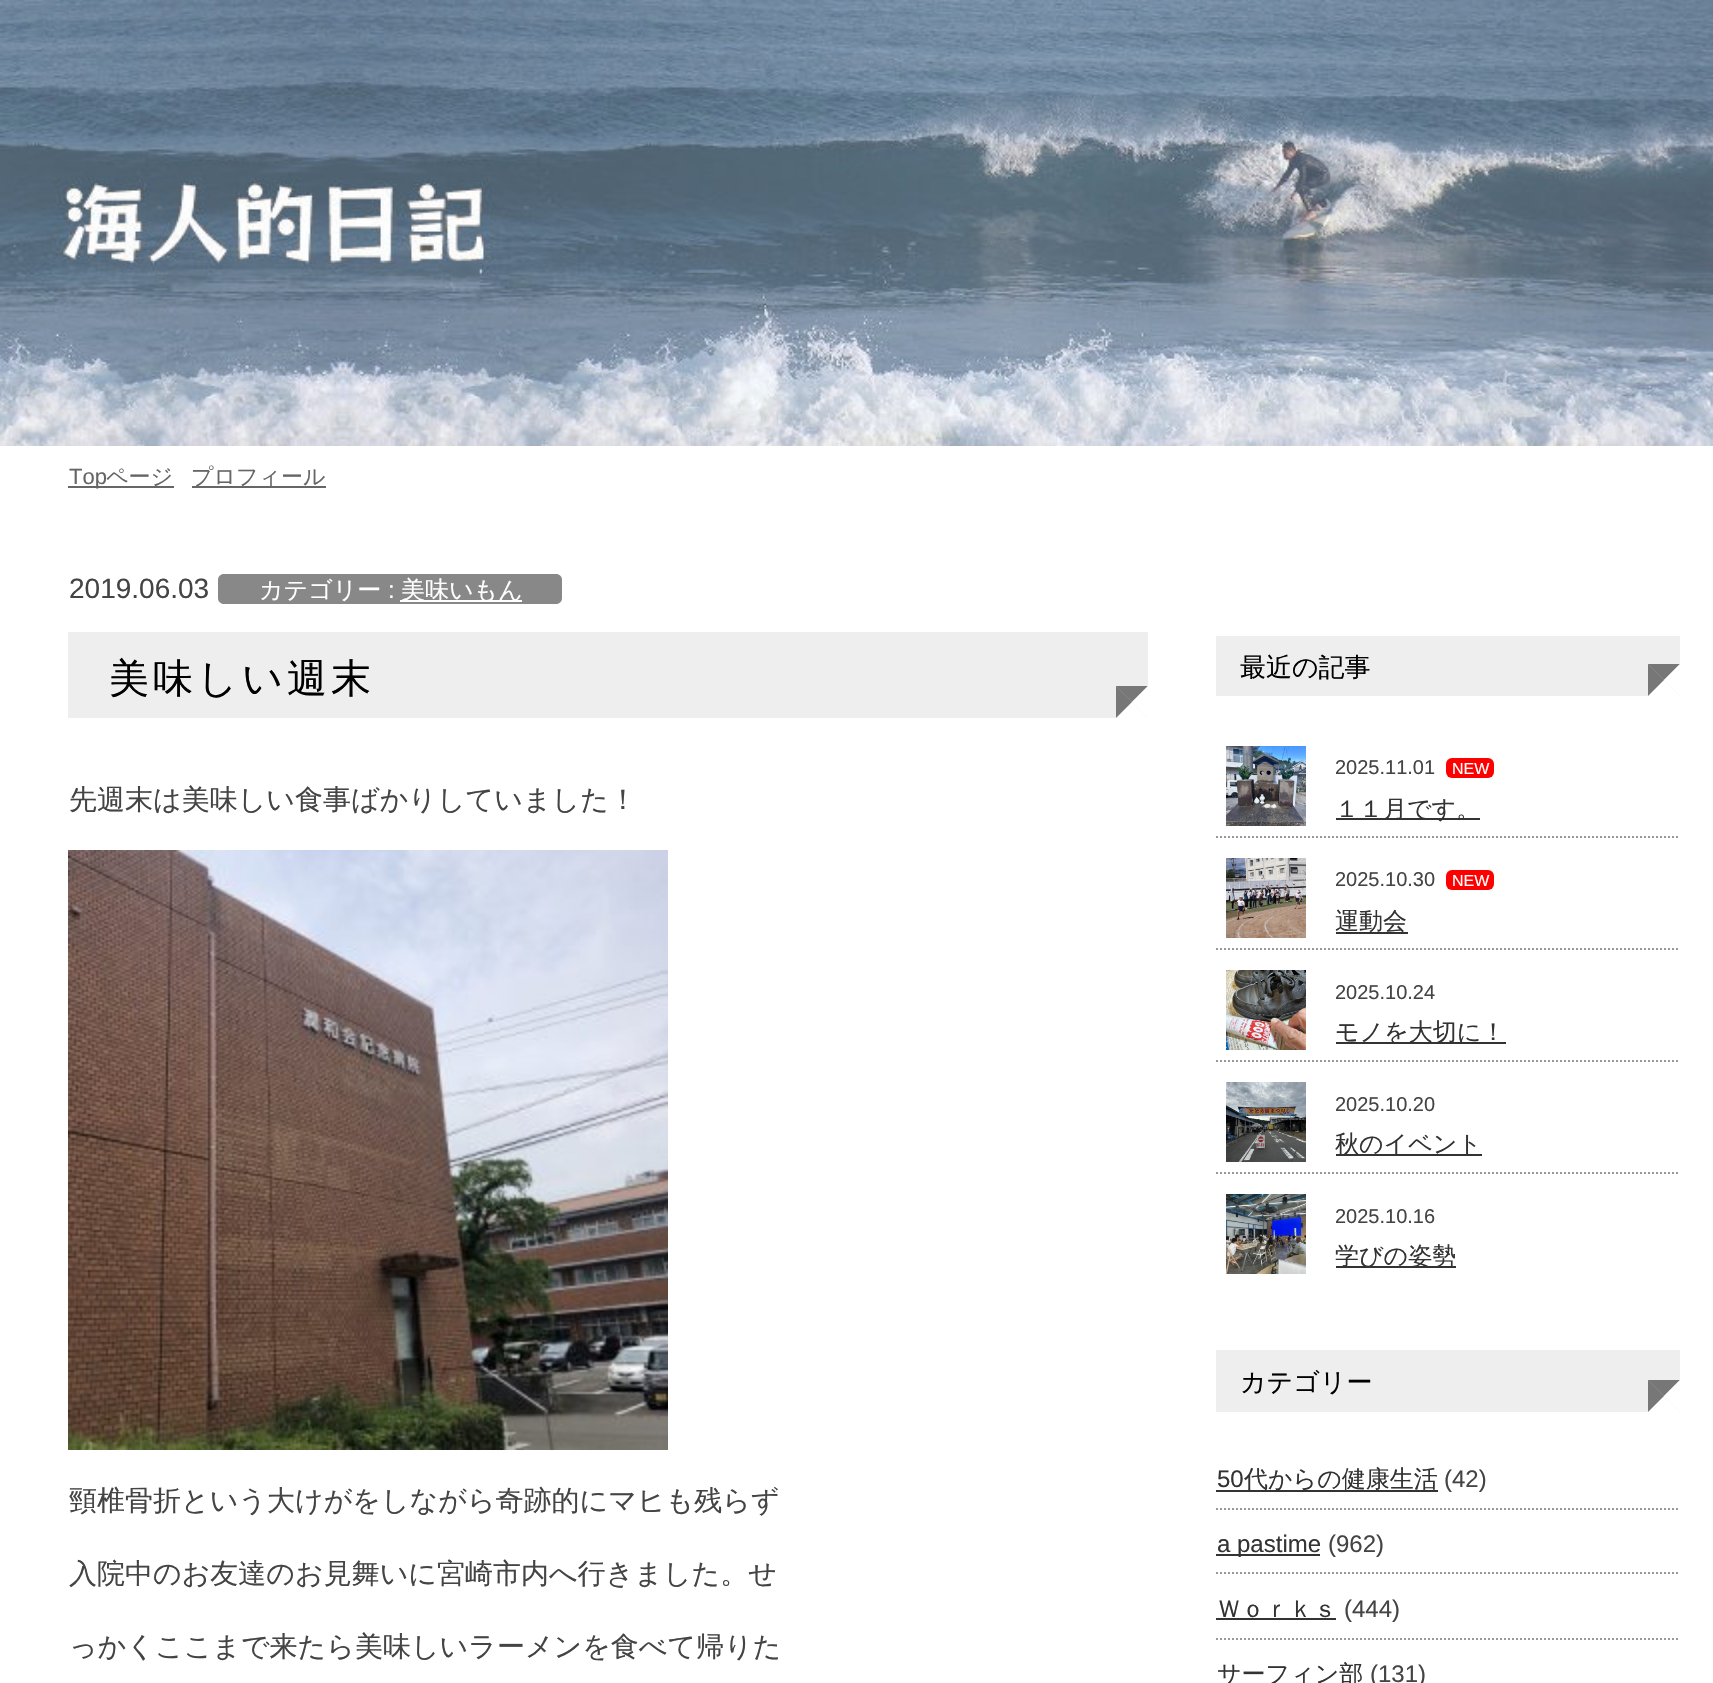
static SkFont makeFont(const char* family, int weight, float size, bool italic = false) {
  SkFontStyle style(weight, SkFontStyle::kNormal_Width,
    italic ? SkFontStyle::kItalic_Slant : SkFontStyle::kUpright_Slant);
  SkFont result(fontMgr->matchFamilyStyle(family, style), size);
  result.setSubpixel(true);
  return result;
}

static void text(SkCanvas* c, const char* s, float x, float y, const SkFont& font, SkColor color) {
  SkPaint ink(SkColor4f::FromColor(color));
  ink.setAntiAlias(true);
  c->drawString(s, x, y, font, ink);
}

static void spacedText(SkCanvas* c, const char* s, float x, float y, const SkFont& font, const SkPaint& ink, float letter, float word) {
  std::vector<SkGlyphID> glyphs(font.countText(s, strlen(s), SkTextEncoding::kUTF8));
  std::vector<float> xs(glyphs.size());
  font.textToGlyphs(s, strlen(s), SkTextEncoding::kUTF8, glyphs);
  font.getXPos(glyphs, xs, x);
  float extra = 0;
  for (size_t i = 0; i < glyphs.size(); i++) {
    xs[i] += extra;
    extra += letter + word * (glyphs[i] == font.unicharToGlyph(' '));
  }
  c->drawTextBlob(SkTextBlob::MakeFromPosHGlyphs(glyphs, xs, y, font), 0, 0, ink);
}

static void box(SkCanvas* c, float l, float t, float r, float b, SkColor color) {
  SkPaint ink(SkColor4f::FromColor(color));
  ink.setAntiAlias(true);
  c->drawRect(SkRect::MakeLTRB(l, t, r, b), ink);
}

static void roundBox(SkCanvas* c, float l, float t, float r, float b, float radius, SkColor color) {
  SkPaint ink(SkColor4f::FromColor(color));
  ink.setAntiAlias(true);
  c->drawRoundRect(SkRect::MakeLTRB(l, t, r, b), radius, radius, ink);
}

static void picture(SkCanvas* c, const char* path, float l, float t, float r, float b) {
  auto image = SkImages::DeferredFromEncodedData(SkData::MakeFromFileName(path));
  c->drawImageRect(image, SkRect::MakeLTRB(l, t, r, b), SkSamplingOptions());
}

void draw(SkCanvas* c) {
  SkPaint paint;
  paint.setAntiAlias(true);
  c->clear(0xffffffff);
  picture(c, "img_01.png", 0, 0, 1713, 446);
  box(c, 68, 486, 174, 488, 0xff666666);
  SkFont face1 = makeFont("Liberation Sans", 400, 22);
  text(c, "Top", 69, 484, face1, 0xff666666);
  SkFont face2 = makeFont("WenQuanYi Zen Hei", 500, 22);
  text(c, "ページ", 106, 484, face2, 0xff666666);
  box(c, 192, 486, 326, 488, 0xff666666);
  text(c, "プロフィール", 191, 484, face2, 0xff666666);
  SkFont face3 = makeFont("Liberation Sans", 400, 28);
  text(c, "2019.06.03", 69, 598, face3, 0xff444444);
  paint.setColor(0xff888888);
  c->drawPath(SkPathBuilder().moveTo(224, 574).lineTo(400, 574).lineTo(400, 604).lineTo(224, 604).cubicTo(220.5f, 604, 218, 601.5f, 218, 598).lineTo(218, 580).cubicTo(218, 576.5f, 220.5f, 574, 224, 574).close().detach(), paint);
  SkFont face4 = makeFont("WenQuanYi Zen Hei", 500, 24);
  text(c, "カテゴリー", 259, 598, face4, 0xffffffff);
  SkFont face5 = makeFont("Liberation Sans", 400, 24);
  text(c, ":", 388, 598, face5, 0xffffffff);
  c->drawPath(SkPathBuilder().moveTo(400, 574).lineTo(556, 574).cubicTo(559.5f, 574, 562, 576.5f, 562, 580).lineTo(562, 598).cubicTo(562, 601.5f, 559.5f, 604, 556, 604).lineTo(400, 604).close().detach(), paint);
  box(c, 400, 600, 522, 602, 0xffffffff);
  text(c, "美味いもん", 401, 598, face4, 0xffffffff);
  box(c, 68, 632, 1148, 718, 0xffeeeeee);
  SkFont face6 = makeFont("WenQuanYi Zen Hei", 500, 40);
  paint.setColor(0xff000000);
  spacedText(c, "美味しい週末", 109, 692, face6, paint, 4, 0);
  paint.setColor(0xff777777);
  c->drawPath(SkPathBuilder().moveTo(1116, 686).lineTo(1148, 686).lineTo(1132, 702).close().detach(), paint);
  paint.setColor(0xffffffff);
  c->drawPath(SkPathBuilder().moveTo(1148, 686).lineTo(1148, 718).lineTo(1132, 702).close().detach(), paint);
  c->drawPath(SkPathBuilder().moveTo(1148, 718).lineTo(1116, 718).lineTo(1132, 702).close().detach(), paint);
  paint.setColor(0x80000000);
  c->drawPath(SkPathBuilder().moveTo(1116, 718).lineTo(1116, 686).lineTo(1132, 702).close().detach(), paint);
  SkFont face7 = makeFont("WenQuanYi Zen Hei", 500, 28);
  text(c, "先週末は美味しい食事ばかりしていました！", 69, 809, face7, 0xff444444);
  picture(c, "img_02.png", 68, 850, 668, 1450);
  text(c, "頸椎骨折という大けがをしながら奇跡的にマヒも残らず", 69, 1510, face7, 0xff444444);
  text(c, "入院中のお友達のお見舞いに宮崎市内へ行きました。せ", 69, 1583, face7, 0xff444444);
  text(c, "っかくここまで来たら美味しいラーメンを食べて帰りた", 69, 1656, face7, 0xff444444);
  box(c, 1216, 636, 1680, 696, 0xffeeeeee);
  SkFont face8 = makeFont("WenQuanYi Zen Hei", 500, 26);
  text(c, "最近の記事", 1240, 676, face8, 0xff000000);
  paint.setColor(0xff777777);
  c->drawPath(SkPathBuilder().moveTo(1648, 664).lineTo(1680, 664).lineTo(1664, 680).close().detach(), paint);
  paint.setColor(0xffffffff);
  c->drawPath(SkPathBuilder().moveTo(1680, 664).lineTo(1680, 696).lineTo(1664, 680).close().detach(), paint);
  c->drawPath(SkPathBuilder().moveTo(1680, 696).lineTo(1648, 696).lineTo(1664, 680).close().detach(), paint);
  paint.setColor(0x80000000);
  c->drawPath(SkPathBuilder().moveTo(1648, 696).lineTo(1648, 664).lineTo(1664, 680).close().detach(), paint);
  paint.setStyle(SkPaint::kStroke_Style);
  paint.setStrokeWidth(2);
  paint.setColor(0xff999999);
  paint.setPathEffect(SkDashPathEffect::Make({{2, 2}}, 0));
  c->drawPath(SkPathBuilder().moveTo(1216, 837).lineTo(1680, 837).detach(), paint);
  paint.setPathEffect(nullptr);
  picture(c, "img_03.png", 1226, 746, 1306, 826);
  SkFont face9 = makeFont("Liberation Sans", 400, 20);
  text(c, "2025.11.01", 1335, 774, face9, 0xff444444);
  roundBox(c, 1446, 758, 1494, 778, 6, 0xffff0000);
  SkFont face10 = makeFont("Liberation Sans", 400, 16);
  text(c, "NEW", 1452, 774, face10, 0xffffffff);
  box(c, 1336, 818, 1480, 820, 0xff333333);
  text(c, "１１月です。", 1335, 817, face4, 0xff333333);
  paint.setPathEffect(SkDashPathEffect::Make({{2, 2}}, 0));
  c->drawPath(SkPathBuilder().moveTo(1216, 949).lineTo(1680, 949).detach(), paint);
  paint.setPathEffect(nullptr);
  picture(c, "img_04.png", 1226, 858, 1306, 938);
  text(c, "2025.10.30", 1335, 886, face9, 0xff444444);
  roundBox(c, 1446, 870, 1494, 890, 6, 0xffff0000);
  text(c, "NEW", 1452, 886, face10, 0xffffffff);
  box(c, 1336, 932, 1408, 934, 0xff333333);
  text(c, "運動会", 1335, 929, face4, 0xff333333);
  paint.setPathEffect(SkDashPathEffect::Make({{2, 2}}, 0));
  c->drawPath(SkPathBuilder().moveTo(1216, 1061).lineTo(1680, 1061).detach(), paint);
  paint.setPathEffect(nullptr);
  picture(c, "img_05.png", 1226, 970, 1306, 1050);
  text(c, "2025.10.24", 1335, 999, face9, 0xff444444);
  box(c, 1336, 1042, 1506, 1044, 0xff333333);
  text(c, "モノを大切に！", 1335, 1040, face4, 0xff333333);
  paint.setPathEffect(SkDashPathEffect::Make({{2, 2}}, 0));
  c->drawPath(SkPathBuilder().moveTo(1216, 1173).lineTo(1680, 1173).detach(), paint);
  paint.setPathEffect(nullptr);
  picture(c, "img_06.png", 1226, 1082, 1306, 1162);
  text(c, "2025.10.20", 1335, 1111, face9, 0xff444444);
  box(c, 1336, 1154, 1482, 1156, 0xff333333);
  text(c, "秋のイベント", 1335, 1152, face4, 0xff333333);
  picture(c, "img_07.png", 1226, 1194, 1306, 1274);
  text(c, "2025.10.16", 1335, 1223, face9, 0xff444444);
  box(c, 1336, 1266, 1456, 1268, 0xff333333);
  text(c, "学びの姿勢", 1335, 1264, face4, 0xff333333);
  box(c, 1216, 1350, 1680, 1412, 0xffeeeeee);
  text(c, "カテゴリー", 1240, 1391, face8, 0xff000000);
  paint.setStyle(SkPaint::kFill_Style);
  paint.setColor(0xff777777);
  c->drawPath(SkPathBuilder().moveTo(1648, 1380).lineTo(1680, 1380).lineTo(1664, 1396).close().detach(), paint);
  paint.setColor(0xffffffff);
  c->drawPath(SkPathBuilder().moveTo(1680, 1380).lineTo(1680, 1412).lineTo(1664, 1396).close().detach(), paint);
  c->drawPath(SkPathBuilder().moveTo(1680, 1412).lineTo(1648, 1412).lineTo(1664, 1396).close().detach(), paint);
  paint.setColor(0x80000000);
  c->drawPath(SkPathBuilder().moveTo(1648, 1412).lineTo(1648, 1380).lineTo(1664, 1396).close().detach(), paint);
  paint.setStyle(SkPaint::kStroke_Style);
  paint.setColor(0xff999999);
  paint.setPathEffect(SkDashPathEffect::Make({{2, 2}}, 0));
  c->drawPath(SkPathBuilder().moveTo(1216, 1509).lineTo(1680, 1509).detach(), paint);
  paint.setPathEffect(nullptr);
  text(c, "50", 1217, 1487, face5, 0xff333333);
  box(c, 1216, 1490, 1438, 1492, 0xff333333);
  text(c, "代からの健康生活", 1244, 1487, face4, 0xff333333);
  text(c, "(42)", 1444, 1487, face5, 0xff444444);
  paint.setPathEffect(SkDashPathEffect::Make({{2, 2}}, 0));
  c->drawPath(SkPathBuilder().moveTo(1216, 1573).lineTo(1680, 1573).detach(), paint);
  paint.setPathEffect(nullptr);
  box(c, 1216, 1554, 1320, 1556, 0xff333333);
  text(c, "a pastime", 1217, 1552, face5, 0xff333333);
  text(c, "(962)", 1328, 1552, face5, 0xff444444);
  paint.setPathEffect(SkDashPathEffect::Make({{2, 2}}, 0));
  c->drawPath(SkPathBuilder().moveTo(1216, 1639).lineTo(1680, 1639).detach(), paint);
  paint.setPathEffect(nullptr);
  text(c, "Ｗｏｒｋｓ", 1217, 1617, face4, 0xff333333);
  box(c, 1216, 1618, 1336, 1620, 0xff333333);
  text(c, "(444)", 1344, 1617, face5, 0xff444444);
  text(c, "サーフィン部", 1217, 1682, face4, 0xff333333);
  text(c, "(131)", 1370, 1682, face5, 0xff444444);
}
